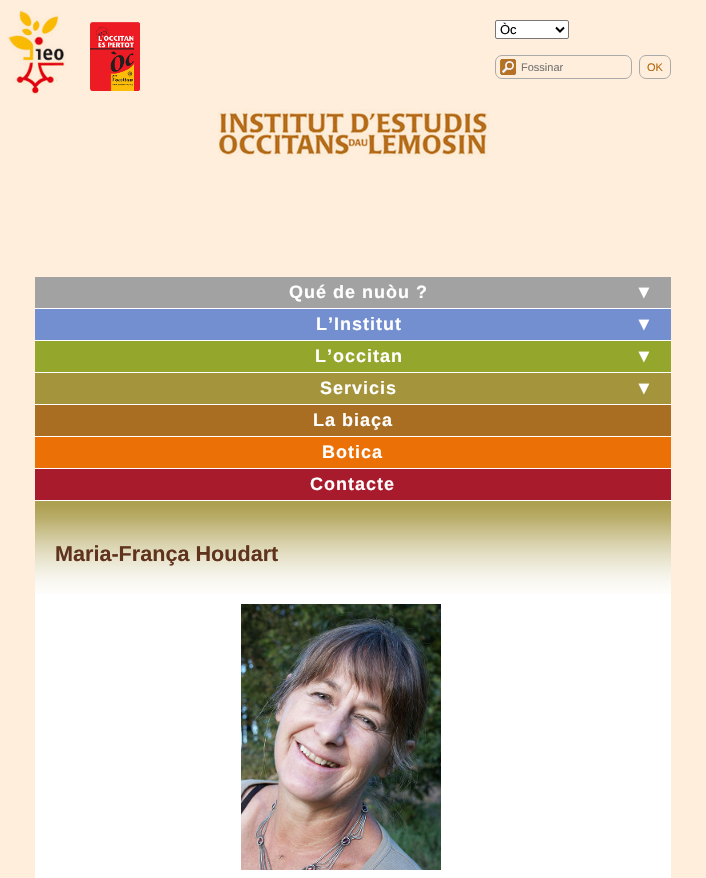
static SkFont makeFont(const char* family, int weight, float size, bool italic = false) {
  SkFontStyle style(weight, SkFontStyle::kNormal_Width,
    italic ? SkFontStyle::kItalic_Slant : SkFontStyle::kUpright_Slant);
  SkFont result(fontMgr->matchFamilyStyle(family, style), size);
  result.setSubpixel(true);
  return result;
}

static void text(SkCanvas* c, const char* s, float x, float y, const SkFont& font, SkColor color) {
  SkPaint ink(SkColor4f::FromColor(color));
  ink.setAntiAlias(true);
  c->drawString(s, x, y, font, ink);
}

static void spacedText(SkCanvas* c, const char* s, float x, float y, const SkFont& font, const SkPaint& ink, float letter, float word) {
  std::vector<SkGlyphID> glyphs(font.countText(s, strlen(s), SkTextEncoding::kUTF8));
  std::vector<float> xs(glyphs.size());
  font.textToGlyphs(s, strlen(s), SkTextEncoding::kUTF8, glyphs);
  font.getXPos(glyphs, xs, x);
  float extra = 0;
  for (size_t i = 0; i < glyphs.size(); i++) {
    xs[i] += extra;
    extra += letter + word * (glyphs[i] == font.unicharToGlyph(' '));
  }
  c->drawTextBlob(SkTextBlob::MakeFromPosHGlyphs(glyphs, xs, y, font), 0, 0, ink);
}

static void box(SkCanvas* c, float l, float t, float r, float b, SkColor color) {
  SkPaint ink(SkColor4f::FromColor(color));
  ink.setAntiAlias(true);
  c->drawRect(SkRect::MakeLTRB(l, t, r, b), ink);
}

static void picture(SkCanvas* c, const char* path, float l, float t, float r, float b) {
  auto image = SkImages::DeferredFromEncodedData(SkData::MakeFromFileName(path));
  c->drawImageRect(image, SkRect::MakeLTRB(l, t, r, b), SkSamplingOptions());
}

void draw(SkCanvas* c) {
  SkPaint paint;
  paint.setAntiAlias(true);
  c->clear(0xffffeedb);
  picture(c, "img_01.png", 7, 10, 66, 95);
  picture(c, "img_02.png", 90, 22, 140, 91);
  paint.setColor(0xffffffff);
  c->drawRoundRect(SkRect::MakeLTRB(495.5f, 20.5f, 568.5f, 38.5f), 1.5f, 1.5f, paint);
  paint.setStyle(SkPaint::kStroke_Style);
  paint.setStrokeWidth(1);
  paint.setColor(0xff767676);
  c->drawRoundRect(SkRect::MakeLTRB(495.5f, 20.5f, 568.5f, 38.5f), 1.5f, 1.5f, paint);
  paint.setStrokeWidth(2);
  paint.setColor(0xff000000);
  c->drawPath(SkPathBuilder().moveTo(556, 27.5f).lineTo(560, 31.5f).lineTo(564, 27.5f).detach(), paint);
  SkFont face1 = makeFont("Liberation Sans", 400, 13);
  text(c, "Òc", 500, 34, face1, 0xff000000);
  picture(c, "img_03.png", 500, 59, 516, 75);
  paint.setStrokeWidth(1);
  paint.setColor(0xffaaaaaa);
  c->drawRoundRect(SkRect::MakeLTRB(495.5f, 55.5f, 631.5f, 78.5f), 6.5f, 6.5f, paint);
  SkFont face2 = makeFont("Liberation Sans", 400, 11);
  text(c, "Fossinar", 521, 71, face2, 0xff757575);
  c->drawRoundRect(SkRect::MakeLTRB(639.5f, 55.5f, 670.5f, 78.5f), 6.5f, 6.5f, paint);
  text(c, "OK", 647, 71, face2, 0xffb36711);
  picture(c, "img_04.png", 217, 109, 489, 157);
  box(c, 35, 277, 671, 308, 0xffa2a2a2);
  box(c, 35, 308, 671, 309, 0xffffffff);
  SkFont face3 = makeFont("Liberation Sans", 700, 18);
  paint.setStyle(SkPaint::kFill_Style);
  paint.setColor(0xffffffff);
  spacedText(c, "Qué de nuòu ?", 289, 298, face3, paint, 1, 0);
  spacedText(c, "▼", 635, 298, face3, paint, 1, 0);
  box(c, 35, 309, 671, 340, 0xff738fcf);
  box(c, 35, 340, 671, 341, 0xffffffff);
  spacedText(c, "L’Institut", 316, 330, face3, paint, 1, 0);
  spacedText(c, "▼", 635, 330, face3, paint, 1, 0);
  box(c, 35, 341, 671, 372, 0xff94a62c);
  box(c, 35, 372, 671, 373, 0xffffffff);
  spacedText(c, "L’occitan", 315, 362, face3, paint, 1, 0);
  spacedText(c, "▼", 635, 362, face3, paint, 1, 0);
  box(c, 35, 373, 671, 404, 0xffa4943c);
  box(c, 35, 404, 671, 405, 0xffffffff);
  spacedText(c, "Servicis", 320, 394, face3, paint, 1, 0);
  spacedText(c, "▼", 635, 394, face3, paint, 1, 0);
  box(c, 35, 405, 671, 436, 0xffa96e22);
  box(c, 35, 436, 671, 437, 0xffffffff);
  spacedText(c, "La biaça", 313, 426, face3, paint, 1, 0);
  box(c, 35, 437, 671, 468, 0xffeb7006);
  box(c, 35, 468, 671, 469, 0xffffffff);
  spacedText(c, "Botica", 322, 458, face3, paint, 1, 0);
  box(c, 35, 469, 671, 500, 0xffa81b2c);
  box(c, 35, 500, 671, 501, 0xffffffff);
  spacedText(c, "Contacte", 310, 490, face3, paint, 1, 0);
  box(c, 35, 594, 671, 878, 0xffffffff);
  picture(c, "img_05.png", 35, 501, 671, 594);
  SkFont face4 = makeFont("Liberation Sans", 700, 21.6f);
  text(c, "Maria-França Houdart", 55, 561, face4, 0xff60331d);
  picture(c, "img_06.png", 241, 604, 441, 870);
}
